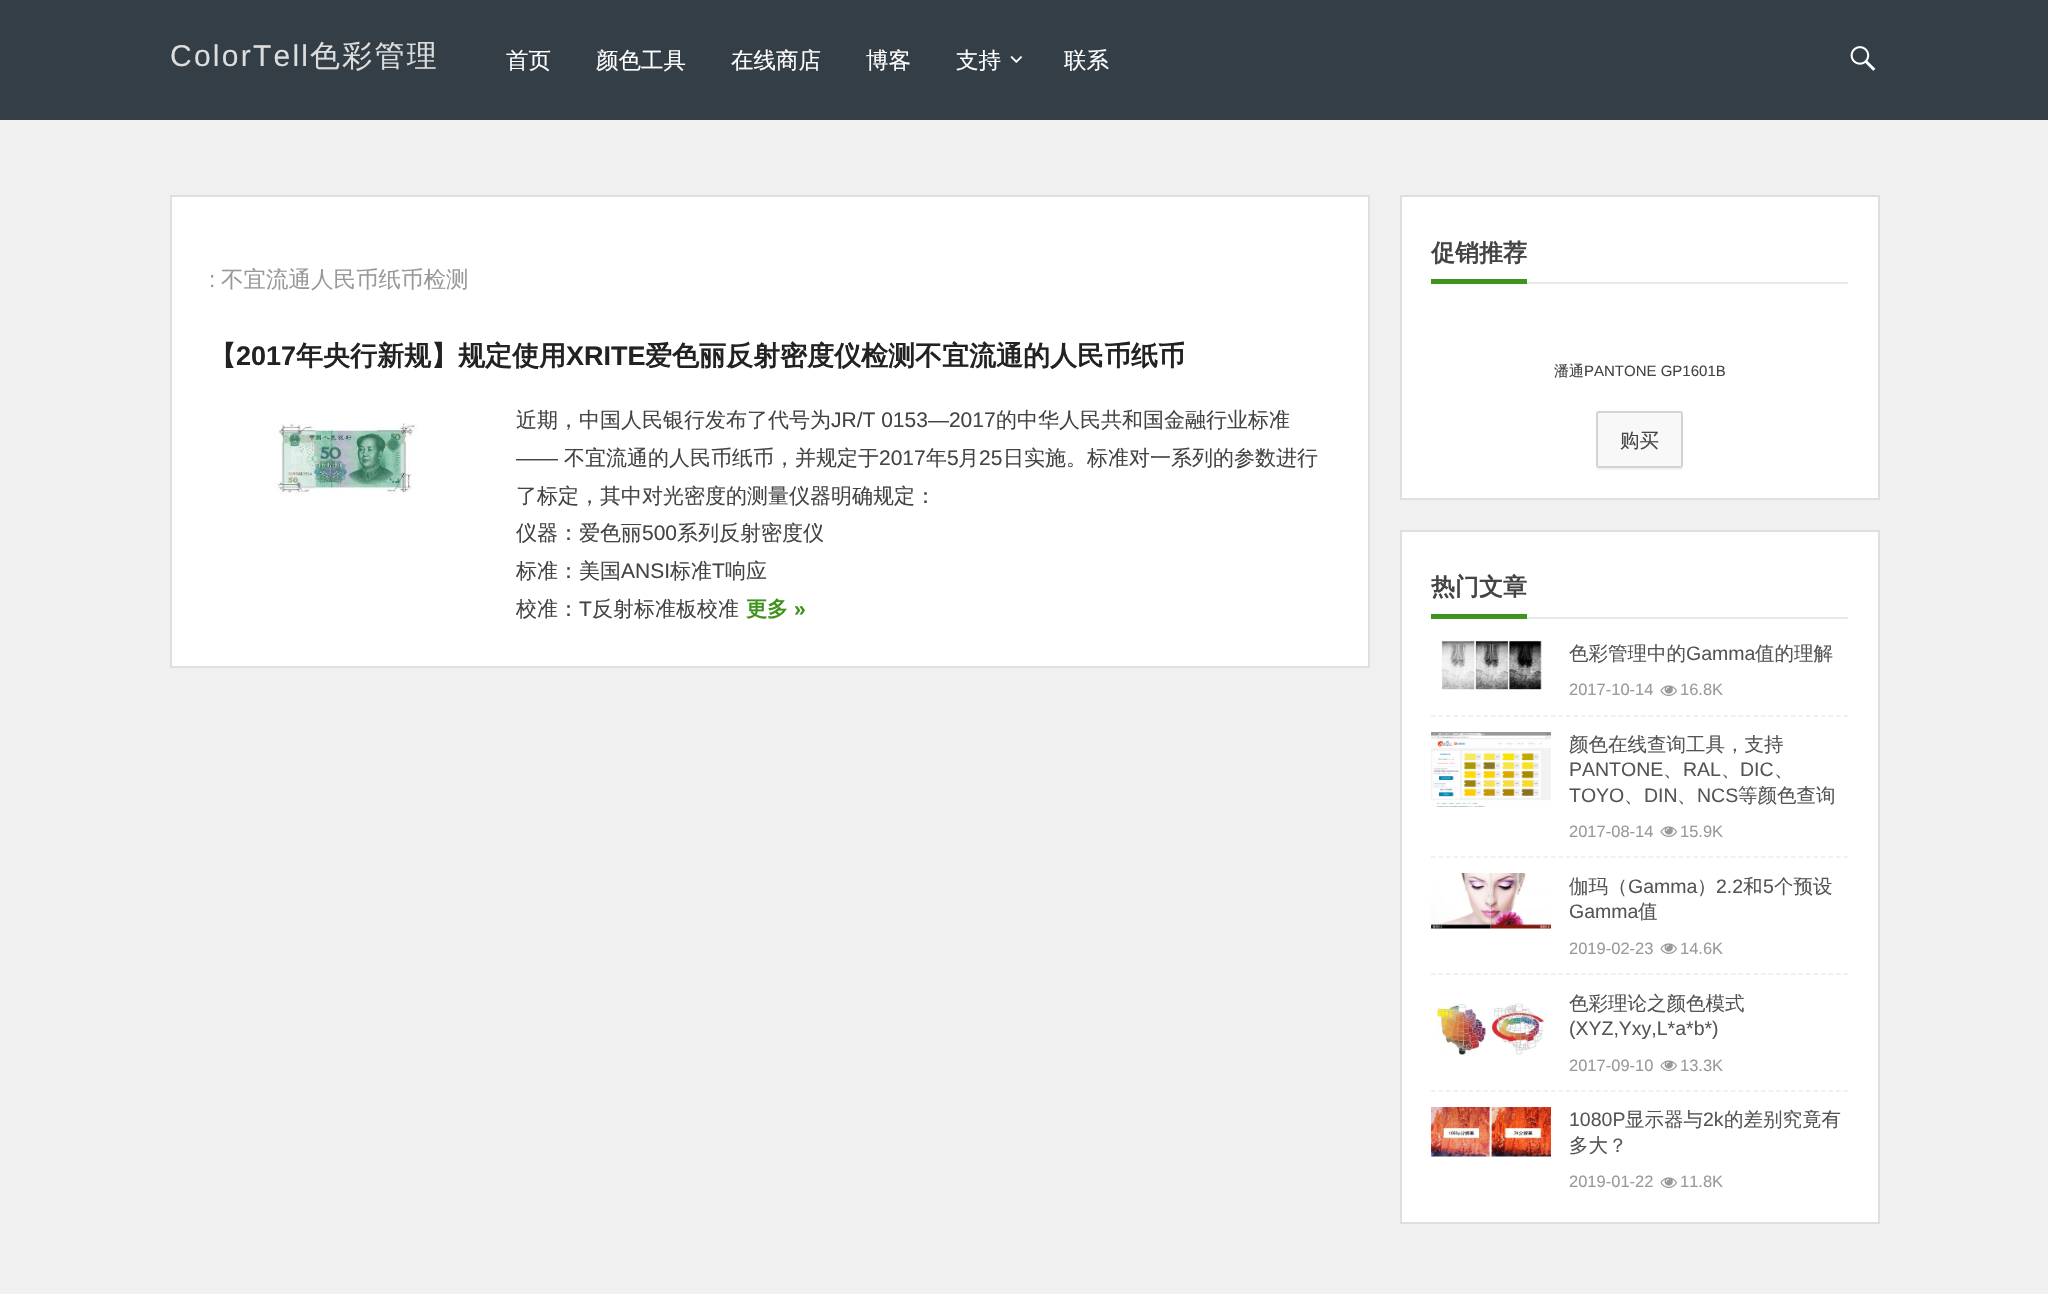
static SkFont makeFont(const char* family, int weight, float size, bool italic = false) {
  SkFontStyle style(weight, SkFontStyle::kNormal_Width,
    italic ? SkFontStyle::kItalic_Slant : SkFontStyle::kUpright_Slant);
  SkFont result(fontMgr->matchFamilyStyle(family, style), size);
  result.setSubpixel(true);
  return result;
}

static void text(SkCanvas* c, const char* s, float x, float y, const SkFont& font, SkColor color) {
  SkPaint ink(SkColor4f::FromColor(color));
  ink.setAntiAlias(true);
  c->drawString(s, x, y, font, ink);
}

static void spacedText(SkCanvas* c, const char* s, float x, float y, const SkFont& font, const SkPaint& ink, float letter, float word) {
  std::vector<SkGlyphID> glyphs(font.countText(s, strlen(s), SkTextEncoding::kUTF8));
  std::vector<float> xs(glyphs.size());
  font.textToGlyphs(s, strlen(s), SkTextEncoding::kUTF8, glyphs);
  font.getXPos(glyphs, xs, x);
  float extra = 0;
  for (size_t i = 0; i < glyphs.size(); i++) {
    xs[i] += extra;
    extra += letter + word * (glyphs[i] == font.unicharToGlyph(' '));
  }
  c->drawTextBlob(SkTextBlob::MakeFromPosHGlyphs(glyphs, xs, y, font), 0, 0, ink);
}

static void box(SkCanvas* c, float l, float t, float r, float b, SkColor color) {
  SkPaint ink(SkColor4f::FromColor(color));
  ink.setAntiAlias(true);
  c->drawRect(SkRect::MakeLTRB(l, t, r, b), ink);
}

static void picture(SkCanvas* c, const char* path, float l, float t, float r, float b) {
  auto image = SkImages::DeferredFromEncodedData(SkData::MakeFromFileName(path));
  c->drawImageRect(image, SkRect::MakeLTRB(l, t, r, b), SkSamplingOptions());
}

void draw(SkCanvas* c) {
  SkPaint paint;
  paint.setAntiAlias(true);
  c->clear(0xfff0f0f0);
  box(c, 0, 0, 2048, 120, 0xff343e47);
  SkFont face1 = makeFont("Liberation Sans", 400, 30);
  paint.setColor(0xffdddddd);
  spacedText(c, "ColorTell", 170, 66, face1, paint, 2.25f, 0);
  SkFont face2 = makeFont("WenQuanYi Zen Hei", 500, 30);
  spacedText(c, "色彩管理", 310, 66, face2, paint, 2.25f, 0);
  SkFont face3 = makeFont("WenQuanYi Zen Hei", 500, 22.5f);
  text(c, "首页", 506, 68, face3, 0xffffffff);
  text(c, "颜色工具", 596, 68, face3, 0xffffffff);
  text(c, "在线商店", 731, 68, face3, 0xffffffff);
  text(c, "博客", 866, 68, face3, 0xffffffff);
  text(c, "支持", 956, 68, face3, 0xffffffff);
  picture(c, "img_01.png", 1010, 56, 1023, 63);
  text(c, "联系", 1064, 68, face3, 0xffffffff);
  picture(c, "img_02.png", 1850, 46, 1876, 71);
  paint.setColor(0xffffffff);
  c->drawRect(SkRect::MakeLTRB(171, 196, 1369, 667), paint);
  paint.setStyle(SkPaint::kStroke_Style);
  paint.setStrokeWidth(2);
  paint.setColor(0xffdfdfdf);
  c->drawRect(SkRect::MakeLTRB(171, 196, 1369, 667), paint);
  SkFont face4 = makeFont("Liberation Sans", 400, 22.5f);
  text(c, ":", 209, 287, face4, 0xff999999);
  text(c, "不宜流通人民币纸币检测", 221, 287, face3, 0xff999999);
  SkFont face5 = makeFont("WenQuanYi Zen Hei", 700, 27);
  text(c, "【", 209, 365, face5, 0xff222222);
  SkFont face6 = makeFont("Liberation Sans", 700, 27);
  text(c, "2017", 236, 365, face6, 0xff222222);
  text(c, "年央行新规】规定使用", 296, 365, face5, 0xff222222);
  text(c, "XRITE", 566, 365, face6, 0xff222222);
  text(c, "爱色丽反射密度仪检测不宜流通的人民币纸币", 645, 365, face5, 0xff222222);
  picture(c, "img_03.png", 273, 422, 417, 496);
  SkFont face7 = makeFont("WenQuanYi Zen Hei", 500, 21);
  text(c, "近期，中国人民银行发布了代号为", 516, 427, face7, 0xff444444);
  SkFont face8 = makeFont("Liberation Sans", 400, 21);
  text(c, "JR/T 0153—2017", 831, 427, face8, 0xff444444);
  text(c, "的中华人民共和国金融行业标准", 996, 427, face7, 0xff444444);
  text(c, "——", 516, 465, face8, 0xff444444);
  text(c, "不宜流通的人民币纸币，并规定于", 564, 465, face7, 0xff444444);
  text(c, "2017", 879, 465, face8, 0xff444444);
  text(c, "年", 926, 465, face7, 0xff444444);
  text(c, "5", 947, 465, face8, 0xff444444);
  text(c, "月", 958, 465, face7, 0xff444444);
  text(c, "25", 979, 465, face8, 0xff444444);
  text(c, "日实施。标准对一系列的参数进行", 1003, 465, face7, 0xff444444);
  text(c, "了标定，其中对光密度的测量仪器明确规定：", 516, 503, face7, 0xff444444);
  text(c, "仪器：爱色丽", 516, 540, face7, 0xff444444);
  text(c, "500", 642, 540, face8, 0xff444444);
  text(c, "系列反射密度仪", 677, 540, face7, 0xff444444);
  text(c, "标准：美国", 516, 578, face7, 0xff444444);
  text(c, "ANSI", 621, 578, face8, 0xff444444);
  text(c, "标准", 670, 578, face7, 0xff444444);
  text(c, "T", 712, 578, face8, 0xff444444);
  text(c, "响应", 725, 578, face7, 0xff444444);
  text(c, "校准：", 516, 616, face7, 0xff444444);
  text(c, "T", 579, 616, face8, 0xff444444);
  text(c, "反射标准板校准", 592, 616, face7, 0xff444444);
  SkFont face9 = makeFont("WenQuanYi Zen Hei", 700, 21);
  text(c, "更多", 746, 616, face9, 0xff3f931d);
  SkFont face10 = makeFont("Liberation Sans", 700, 21);
  text(c, "»", 794, 616, face10, 0xff3f931d);
  paint.setStyle(SkPaint::kFill_Style);
  paint.setColor(0xffffffff);
  c->drawRect(SkRect::MakeLTRB(1401, 196, 1879, 499), paint);
  paint.setStyle(SkPaint::kStroke_Style);
  paint.setColor(0xffdfdfdf);
  c->drawRect(SkRect::MakeLTRB(1401, 196, 1879, 499), paint);
  box(c, 1527, 282, 1848, 284, 0xffe9e9e9);
  box(c, 1431, 279, 1527, 284, 0xff3f931d);
  SkFont face11 = makeFont("WenQuanYi Zen Hei", 700, 24);
  text(c, "促销推荐", 1431, 261, face11, 0xff444444);
  SkFont face12 = makeFont("WenQuanYi Zen Hei", 500, 15);
  text(c, "潘通", 1554, 376, face12, 0xff444444);
  SkFont face13 = makeFont("Liberation Sans", 400, 15);
  text(c, "PANTONE GP1601B", 1584, 376, face13, 0xff444444);
  paint.setStyle(SkPaint::kFill_Style);
  paint.setColor(0xfff2f2f2);
  c->drawPath(SkPathBuilder().moveTo(1596, 465).lineTo(1596, 467).cubicTo(1596, 469, 1597, 470, 1599, 470).lineTo(1680, 470).cubicTo(1682, 470, 1683, 469, 1683, 467).lineTo(1683, 465).cubicTo(1683, 467, 1682, 468, 1680, 468).lineTo(1599, 468).cubicTo(1597, 468, 1596, 467, 1596, 465).close().detach(), paint);
  paint.setColor(0xfff8f8f8);
  c->drawRoundRect(SkRect::MakeLTRB(1597, 412, 1682, 467), 2, 2, paint);
  paint.setStyle(SkPaint::kStroke_Style);
  paint.setColor(0xffd3d3d3);
  c->drawRoundRect(SkRect::MakeLTRB(1597, 412, 1682, 467), 2, 2, paint);
  SkFont face14 = makeFont("WenQuanYi Zen Hei", 500, 19.5f);
  text(c, "购买", 1620, 447, face14, 0xff444444);
  paint.setStyle(SkPaint::kFill_Style);
  paint.setColor(0xffffffff);
  c->drawRect(SkRect::MakeLTRB(1401, 531, 1879, 1223), paint);
  paint.setStyle(SkPaint::kStroke_Style);
  paint.setColor(0xffdfdfdf);
  c->drawRect(SkRect::MakeLTRB(1401, 531, 1879, 1223), paint);
  box(c, 1527, 617, 1848, 619, 0xffe9e9e9);
  box(c, 1431, 614, 1527, 619, 0xff3f931d);
  text(c, "热门文章", 1431, 595, face11, 0xff444444);
  paint.setStrokeWidth(1.5f);
  paint.setColor(0xffebebeb);
  paint.setPathEffect(SkDashPathEffect::Make({{4.5f, 3}}, 0));
  c->drawPath(SkPathBuilder().moveTo(1431, 716).lineTo(1848, 716).detach(), paint);
  paint.setPathEffect(nullptr);
  picture(c, "img_04.png", 1441, 640, 1542, 690);
  text(c, "色彩管理中的", 1569, 660, face14, 0xff555555);
  SkFont face15 = makeFont("Liberation Sans", 400, 19.5f);
  text(c, "Gamma", 1686, 660, face15, 0xff555555);
  text(c, "值的理解", 1755, 660, face14, 0xff555555);
  SkFont face16 = makeFont("Liberation Sans", 400, 16.5f);
  text(c, "2017-10-14", 1569, 695, face16, 0xff999999);
  picture(c, "img_05.png", 1660, 685, 1677, 696);
  text(c, "16.8K", 1680, 695, face16, 0xff999999);
  paint.setPathEffect(SkDashPathEffect::Make({{4.5f, 3}}, 0));
  c->drawPath(SkPathBuilder().moveTo(1431, 857).lineTo(1848, 857).detach(), paint);
  paint.setPathEffect(nullptr);
  picture(c, "img_06.png", 1431, 732, 1551, 807);
  text(c, "颜色在线查询工具，支持", 1569, 751, face14, 0xff555555);
  text(c, "PANTONE", 1569, 776, face15, 0xff555555);
  text(c, "、", 1663, 776, face14, 0xff555555);
  text(c, "RAL", 1683, 776, face15, 0xff555555);
  text(c, "、", 1721, 776, face14, 0xff555555);
  text(c, "DIC", 1740, 776, face15, 0xff555555);
  text(c, "、", 1774, 776, face14, 0xff555555);
  text(c, "TOYO", 1569, 802, face15, 0xff555555);
  text(c, "、", 1624, 802, face14, 0xff555555);
  text(c, "DIN", 1644, 802, face15, 0xff555555);
  text(c, "、", 1677, 802, face14, 0xff555555);
  text(c, "NCS", 1697, 802, face15, 0xff555555);
  text(c, "等颜色查询", 1738, 802, face14, 0xff555555);
  text(c, "2017-08-14", 1569, 837, face16, 0xff999999);
  picture(c, "img_05.png", 1660, 826, 1677, 837);
  text(c, "15.9K", 1680, 837, face16, 0xff999999);
  paint.setPathEffect(SkDashPathEffect::Make({{4.5f, 3}}, 0));
  c->drawPath(SkPathBuilder().moveTo(1431, 974).lineTo(1848, 974).detach(), paint);
  paint.setPathEffect(nullptr);
  picture(c, "img_07.png", 1431, 873, 1551, 929);
  text(c, "伽玛（", 1569, 893, face14, 0xff555555);
  text(c, "Gamma", 1628, 893, face15, 0xff555555);
  text(c, "）", 1697, 893, face14, 0xff555555);
  text(c, "2.2", 1716, 893, face15, 0xff555555);
  text(c, "和", 1743, 893, face14, 0xff555555);
  text(c, "5", 1763, 893, face15, 0xff555555);
  text(c, "个预设", 1774, 893, face14, 0xff555555);
  text(c, "Gamma", 1569, 918, face15, 0xff555555);
  text(c, "值", 1638, 918, face14, 0xff555555);
  text(c, "2019-02-23", 1569, 954, face16, 0xff999999);
  picture(c, "img_05.png", 1660, 943, 1677, 954);
  text(c, "14.6K", 1680, 954, face16, 0xff999999);
  paint.setPathEffect(SkDashPathEffect::Make({{4.5f, 3}}, 0));
  c->drawPath(SkPathBuilder().moveTo(1431, 1091).lineTo(1848, 1091).detach(), paint);
  paint.setPathEffect(nullptr);
  picture(c, "img_08.png", 1436, 1003, 1546, 1055);
  text(c, "色彩理论之颜色模式", 1569, 1010, face14, 0xff555555);
  text(c, "(XYZ,Yxy,L*a*b*)", 1569, 1035, face15, 0xff555555);
  text(c, "2017-09-10", 1569, 1071, face16, 0xff999999);
  picture(c, "img_05.png", 1660, 1060, 1677, 1071);
  text(c, "13.3K", 1680, 1071, face16, 0xff999999);
  picture(c, "img_09.png", 1431, 1107, 1551, 1157);
  text(c, "1080P", 1569, 1126, face15, 0xff555555);
  text(c, "显示器与", 1625, 1126, face14, 0xff555555);
  text(c, "2k", 1703, 1126, face15, 0xff555555);
  text(c, "的差别究竟有", 1724, 1126, face14, 0xff555555);
  text(c, "多大？", 1569, 1152, face14, 0xff555555);
  text(c, "2019-01-22", 1569, 1187, face16, 0xff999999);
  picture(c, "img_05.png", 1660, 1177, 1677, 1188);
  text(c, "11.8K", 1680, 1187, face16, 0xff999999);
}
